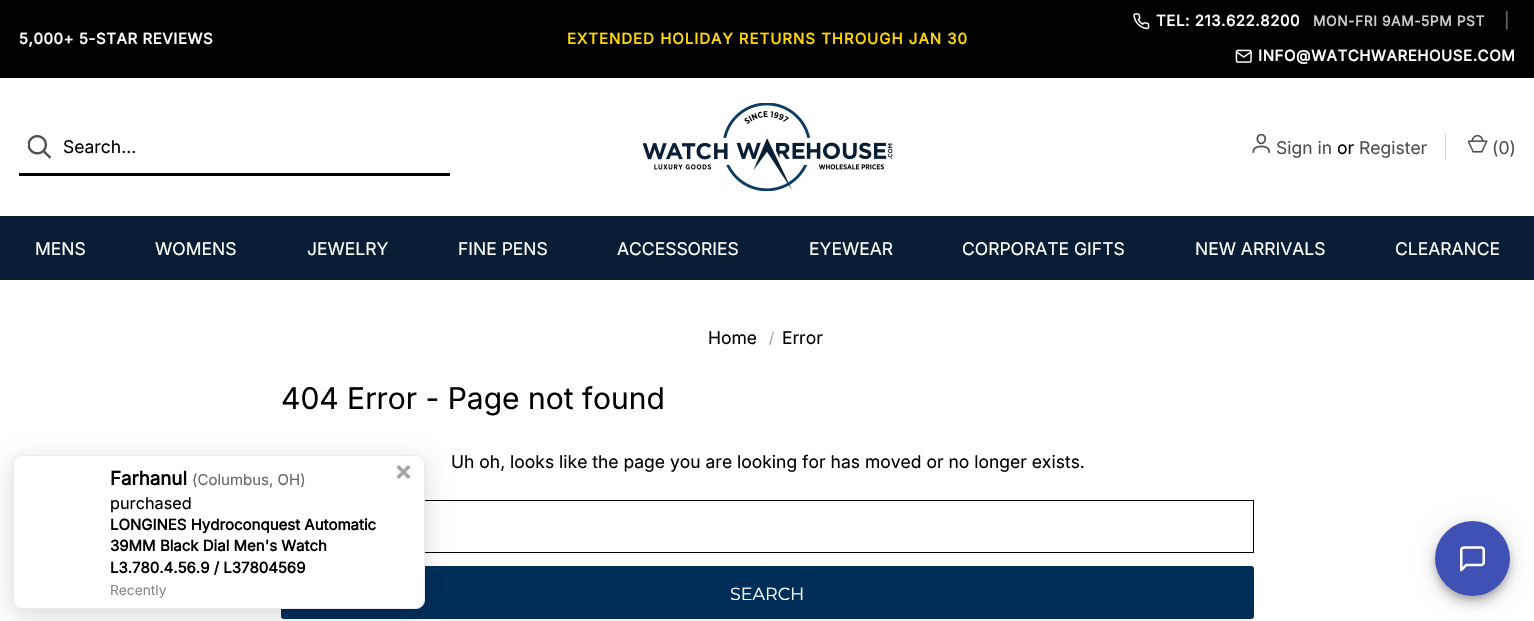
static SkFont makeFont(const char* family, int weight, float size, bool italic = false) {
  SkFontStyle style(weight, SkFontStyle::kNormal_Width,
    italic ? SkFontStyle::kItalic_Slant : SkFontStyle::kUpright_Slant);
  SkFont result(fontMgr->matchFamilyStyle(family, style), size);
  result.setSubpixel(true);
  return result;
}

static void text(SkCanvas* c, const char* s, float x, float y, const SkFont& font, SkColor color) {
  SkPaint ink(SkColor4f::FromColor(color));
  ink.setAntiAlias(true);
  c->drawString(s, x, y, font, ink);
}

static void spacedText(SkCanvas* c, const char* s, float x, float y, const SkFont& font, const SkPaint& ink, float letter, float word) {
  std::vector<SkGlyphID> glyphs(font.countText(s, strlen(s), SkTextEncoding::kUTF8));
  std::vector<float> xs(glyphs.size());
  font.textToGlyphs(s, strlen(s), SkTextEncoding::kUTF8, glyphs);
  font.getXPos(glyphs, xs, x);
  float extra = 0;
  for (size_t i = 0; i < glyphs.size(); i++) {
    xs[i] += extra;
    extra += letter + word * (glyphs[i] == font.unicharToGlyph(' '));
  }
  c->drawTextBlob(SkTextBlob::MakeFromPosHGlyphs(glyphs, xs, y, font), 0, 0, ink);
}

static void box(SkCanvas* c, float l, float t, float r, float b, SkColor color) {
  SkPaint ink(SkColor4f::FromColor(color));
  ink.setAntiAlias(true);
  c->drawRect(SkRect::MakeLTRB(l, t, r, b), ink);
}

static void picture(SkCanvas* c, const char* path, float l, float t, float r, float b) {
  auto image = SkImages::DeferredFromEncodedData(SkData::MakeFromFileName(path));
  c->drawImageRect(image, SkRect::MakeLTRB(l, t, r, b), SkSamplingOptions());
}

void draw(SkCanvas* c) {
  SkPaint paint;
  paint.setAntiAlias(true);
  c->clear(0xffffffff);
  box(c, 0, 0, 1534, 78, 0xff000000);
  SkFont face1 = makeFont("Inter", 700, 15);
  paint.setColor(0xffffffff);
  spacedText(c, "5,000+ 5-STAR REVIEWS", 19, 44, face1, paint, 0.6f, 0);
  paint.setColor(0xffffd700);
  spacedText(c, "EXTENDED HOLIDAY RETURNS THROUGH JAN 30", 567, 44, face1, paint, 1, 0);
  picture(c, "img_01.png", 1133, 13, 1150, 30);
  paint.setColor(0xffffffff);
  spacedText(c, "TEL: 213.622.8200", 1156, 26, face1, paint, 0.6f, 0);
  SkFont face2 = makeFont("Inter", 700, 13.75f);
  paint.setColor(0xffcccccc);
  spacedText(c, "MON-FRI 9AM-5PM PST", 1313, 26, face2, paint, 0.6f, 0);
  paint.setColor(0xff666666);
  spacedText(c, "|", 1504, 26, face1, paint, 0.6f, 0);
  picture(c, "img_02.png", 1235, 49, 1252, 63);
  paint.setColor(0xffffffff);
  spacedText(c, "INFO@WATCHWAREHOUSE.COM", 1258, 61, face1, paint, 0.6f, 0);
  picture(c, "img_03.png", 28, 135, 51, 159);
  box(c, 19, 173, 450, 176, 0xff000000);
  SkFont face3 = makeFont("Inter", 400, 17.5f);
  text(c, "Search...", 63, 153, face3, 0xff000000);
  picture(c, "img_04.png", 643, 103, 893, 191);
  picture(c, "img_05.png", 1252, 134, 1271, 153);
  text(c, "Sign in", 1276, 154, face3, 0xff4e4e4e);
  text(c, "or", 1337, 154, face3, 0xff000000);
  text(c, "Register", 1359, 154, face3, 0xff4e4e4e);
  box(c, 1445, 134, 1446, 160, 0xffd2d2d2);
  picture(c, "img_06.png", 1468, 134, 1488, 153);
  text(c, "(0)", 1492, 154, face3, 0xff4e4e4e);
  box(c, 0, 216, 1534, 280, 0xff091d35);
  text(c, "MENS", 35, 255, face3, 0xffffffff);
  text(c, "WOMENS", 155, 255, face3, 0xffffffff);
  text(c, "JEWELRY", 307, 255, face3, 0xffffffff);
  text(c, "FINE PENS", 458, 255, face3, 0xffffffff);
  text(c, "ACCESSORIES", 617, 255, face3, 0xffffffff);
  text(c, "EYEWEAR", 809, 255, face3, 0xffffffff);
  text(c, "CORPORATE GIFTS", 962, 255, face3, 0xffffffff);
  text(c, "NEW ARRIVALS", 1195, 255, face3, 0xffffffff);
  text(c, "CLEARANCE", 1395, 255, face3, 0xffffffff);
  paint.setStyle(SkPaint::kStroke_Style);
  paint.setStrokeWidth(1);
  paint.setColor(0xff000000);
  c->drawRect(SkRect::MakeLTRB(281.5f, 500.5f, 1253.5f, 552.5f), paint);
  paint.setStyle(SkPaint::kFill_Style);
  paint.setColor(0xff002e59);
  c->drawRoundRect(SkRect::MakeLTRB(281.5f, 566.5f, 1253.5f, 618.5f), 2, 2, paint);
  paint.setStyle(SkPaint::kStroke_Style);
  c->drawRoundRect(SkRect::MakeLTRB(281.5f, 566.5f, 1253.5f, 618.5f), 2, 2, paint);
  paint.setStyle(SkPaint::kFill_Style);
  paint.setColor(0x26000000);
  paint.setMaskFilter(SkMaskFilter::MakeBlur(kNormal_SkBlurStyle, 12.5f));
  c->drawRoundRect(SkRect::MakeLTRB(13, 461, 425, 615), 9, 9, paint);
  paint.setMaskFilter(nullptr);
  paint.setColor(0xffffffff);
  c->drawRoundRect(SkRect::MakeLTRB(13.5f, 455.5f, 424.5f, 608.5f), 8.5f, 8.5f, paint);
  paint.setStyle(SkPaint::kStroke_Style);
  paint.setColor(0xffececec);
  c->drawRoundRect(SkRect::MakeLTRB(13.5f, 455.5f, 424.5f, 608.5f), 8.5f, 8.5f, paint);
  SkFont face4 = makeFont("Inter", 700, 18.75f);
  text(c, "Farhanul", 110, 485, face4, 0xff000000);
  SkFont face5 = makeFont("Inter", 400, 15);
  text(c, "(Columbus, OH)", 192, 485, face5, 0xff666666);
  SkFont face6 = makeFont("Inter", 400, 16.25f);
  text(c, "purchased", 110, 509, face6, 0xff000000);
  text(c, "LONGINES Hydroconquest Automatic", 110, 530, face1, 0xff000000);
  text(c, "39MM Black Dial Men's Watch", 110, 551, face1, 0xff000000);
  text(c, "L3.780.4.56.9 / L37804569", 110, 573, face1, 0xff000000);
  SkFont face7 = makeFont("Inter", 400, 13.75f);
  text(c, "Recently", 110, 595, face7, 0xff888888);
  paint.setStyle(SkPaint::kFill_Style);
  paint.setColor(0xffa3a3a3);
  c->drawPath(SkPathBuilder().moveTo(399, 465).lineTo(410.5f, 476.5f).lineTo(408, 479).lineTo(396.5f, 467.5f).close().detach(), paint);
  c->drawPath(SkPathBuilder().moveTo(408, 465).lineTo(410.5f, 467.5f).lineTo(399, 479).lineTo(396.5f, 476.5f).close().detach(), paint);
  text(c, "Home", 708, 344, face3, 0xff000000);
  c->drawPath(SkPathBuilder().moveTo(773, 331).lineTo(774, 331.5f).lineTo(770.5f, 345).lineTo(769, 344.5f).close().detach(), paint);
  text(c, "Error", 782, 344, face3, 0xff000000);
  SkFont face8 = makeFont("Inter", 400, 30);
  text(c, "404 Error - Page not found", 281, 409, face8, 0xff000000);
  text(c, "Uh oh, looks like the page you are looking for has moved or no longer exists.", 451, 468, face3, 0xff000000);
  SkFont face9 = makeFont("Montserrat", 400, 17.5f);
  text(c, "SEARCH", 730, 600, face9, 0xffffffff);
  paint.setColor(0x1f000000);
  paint.setMaskFilter(SkMaskFilter::MakeBlur(kNormal_SkBlurStyle, 11));
  c->drawRoundRect(SkRect::MakeLTRB(1435, 523, 1510, 598), 37.5f, 37.5f, paint);
  paint.setMaskFilter(nullptr);
  paint.setColor(0x24000000);
  paint.setMaskFilter(SkMaskFilter::MakeBlur(kNormal_SkBlurStyle, 6));
  c->drawRoundRect(SkRect::MakeLTRB(1435, 529, 1510, 604), 37.5f, 37.5f, paint);
  paint.setMaskFilter(nullptr);
  paint.setColor(0x33000000);
  paint.setMaskFilter(SkMaskFilter::MakeBlur(kNormal_SkBlurStyle, 3));
  c->drawRoundRect(SkRect::MakeLTRB(1436, 526, 1509, 599), 36.5f, 36.5f, paint);
  paint.setMaskFilter(nullptr);
  paint.setColor(0xff3f51b5);
  c->drawCircle(1472.5f, 558.5f, 37.5f, paint);
  picture(c, "img_07.png", 1460, 546, 1485, 572);
}
